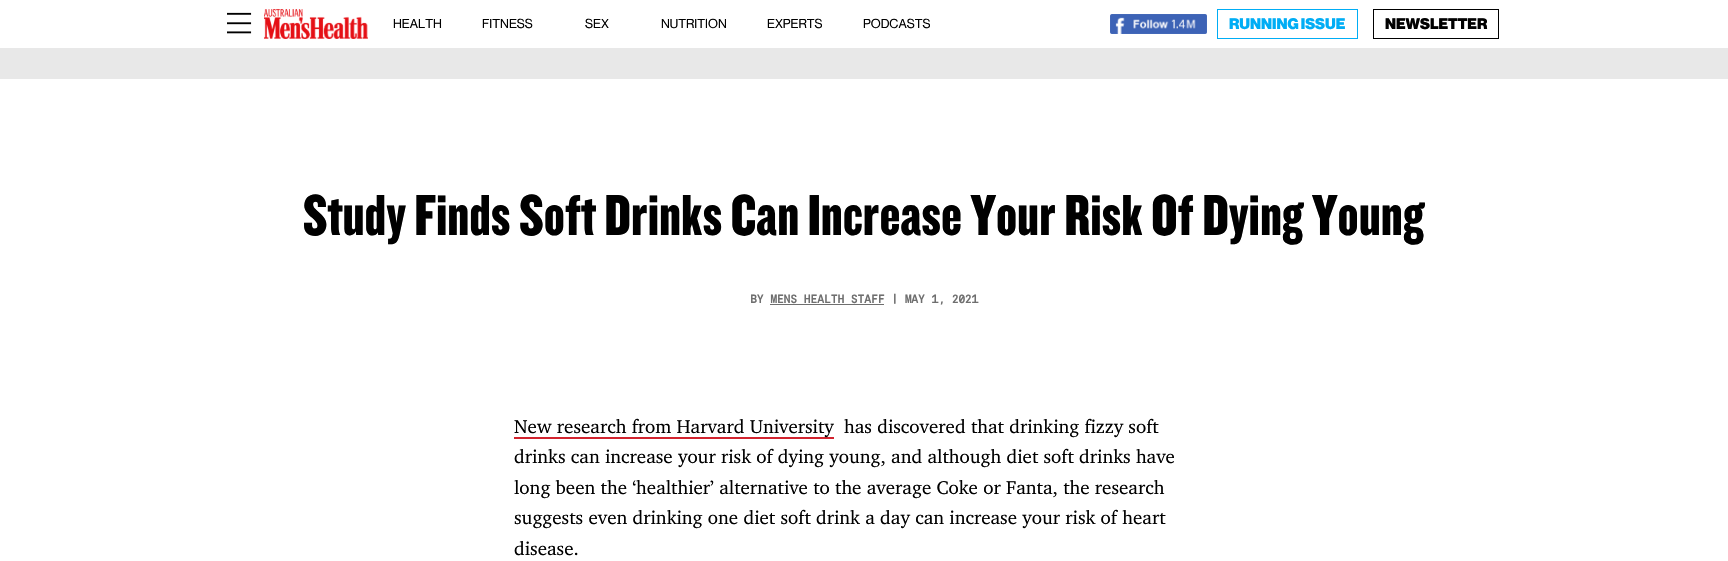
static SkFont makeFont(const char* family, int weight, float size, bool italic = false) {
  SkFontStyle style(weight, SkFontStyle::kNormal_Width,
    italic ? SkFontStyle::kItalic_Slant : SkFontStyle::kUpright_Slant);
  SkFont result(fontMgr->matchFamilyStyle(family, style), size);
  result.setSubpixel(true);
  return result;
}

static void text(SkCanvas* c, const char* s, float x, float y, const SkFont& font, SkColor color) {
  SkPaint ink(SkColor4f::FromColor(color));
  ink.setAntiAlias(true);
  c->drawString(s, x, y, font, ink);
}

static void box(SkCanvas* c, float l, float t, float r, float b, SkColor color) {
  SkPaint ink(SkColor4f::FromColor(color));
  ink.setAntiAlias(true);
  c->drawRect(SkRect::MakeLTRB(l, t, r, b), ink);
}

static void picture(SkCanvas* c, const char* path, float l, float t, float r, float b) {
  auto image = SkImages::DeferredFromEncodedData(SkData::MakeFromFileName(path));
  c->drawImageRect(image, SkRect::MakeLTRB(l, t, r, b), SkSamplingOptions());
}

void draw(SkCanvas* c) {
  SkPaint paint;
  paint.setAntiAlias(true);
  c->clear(0xffffffff);
  picture(c, "img_01.png", 227, 12, 252, 34);
  picture(c, "img_02.png", 264, 9, 368, 39);
  SkFont face1 = makeFont("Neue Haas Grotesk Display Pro", 400, 12.75f);
  text(c, "HEALTH", 393, 28, face1, 0xff000000);
  text(c, "FITNESS", 482, 28, face1, 0xff000000);
  text(c, "SEX", 585, 28, face1, 0xff000000);
  text(c, "NUTRITION", 661, 28, face1, 0xff000000);
  text(c, "EXPERTS", 767, 28, face1, 0xff000000);
  text(c, "PODCASTS", 863, 28, face1, 0xff000000);
  picture(c, "img_03.png", 1110, 14, 1207, 34);
  paint.setStyle(SkPaint::kStroke_Style);
  paint.setStrokeWidth(1);
  paint.setColor(0xff00adf5);
  c->drawRect(SkRect::MakeLTRB(1217.5f, 9.5f, 1357.5f, 38.5f), paint);
  SkFont face2 = makeFont("Neue Haas Grotesk Display Pro", 900, 15);
  text(c, "RUNNING ISSUE", 1229, 29, face2, 0xff00adf5);
  paint.setColor(0xff000000);
  c->drawRect(SkRect::MakeLTRB(1373.5f, 9.5f, 1498.5f, 38.5f), paint);
  text(c, "NEWSLETTER", 1385, 29, face2, 0xff000000);
  box(c, 0, 48, 1728, 79, 0xffe8e8e8);
  SkFont face3 = makeFont("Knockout", 400, 60);
  text(c, "Study Finds Soft Drinks Can Increase Your Risk Of Dying Young", 303, 235, face3, 0xff000000);
  SkFont face4 = makeFont("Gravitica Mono", 700, 11.6f);
  text(c, "BY MENS HEALTH STAFF | MAY 1, 2021", 750, 303, face4, 0xff6f6f6f);
  box(c, 770, 304, 884, 305, 0xff6f6f6f);
  box(c, 514, 437, 834, 439, 0xffd2232e);
  SkFont face5 = makeFont("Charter", 400, 19);
  text(c, "New research from Harvard University", 514, 433, face5, 0xff000000);
  text(c, "has discovered that drinking fizzy soft", 844, 433, face5, 0xff000000);
  text(c, "drinks can increase your risk of dying young, and although diet soft drinks have", 514, 463, face5, 0xff000000);
  text(c, "long been the ‘healthier’ alternative to the average Coke or Fanta, the research", 514, 494, face5, 0xff000000);
  text(c, "suggests even drinking one diet soft drink a day can increase your risk of heart", 514, 524, face5, 0xff000000);
  text(c, "disease.", 514, 555, face5, 0xff000000);
}
